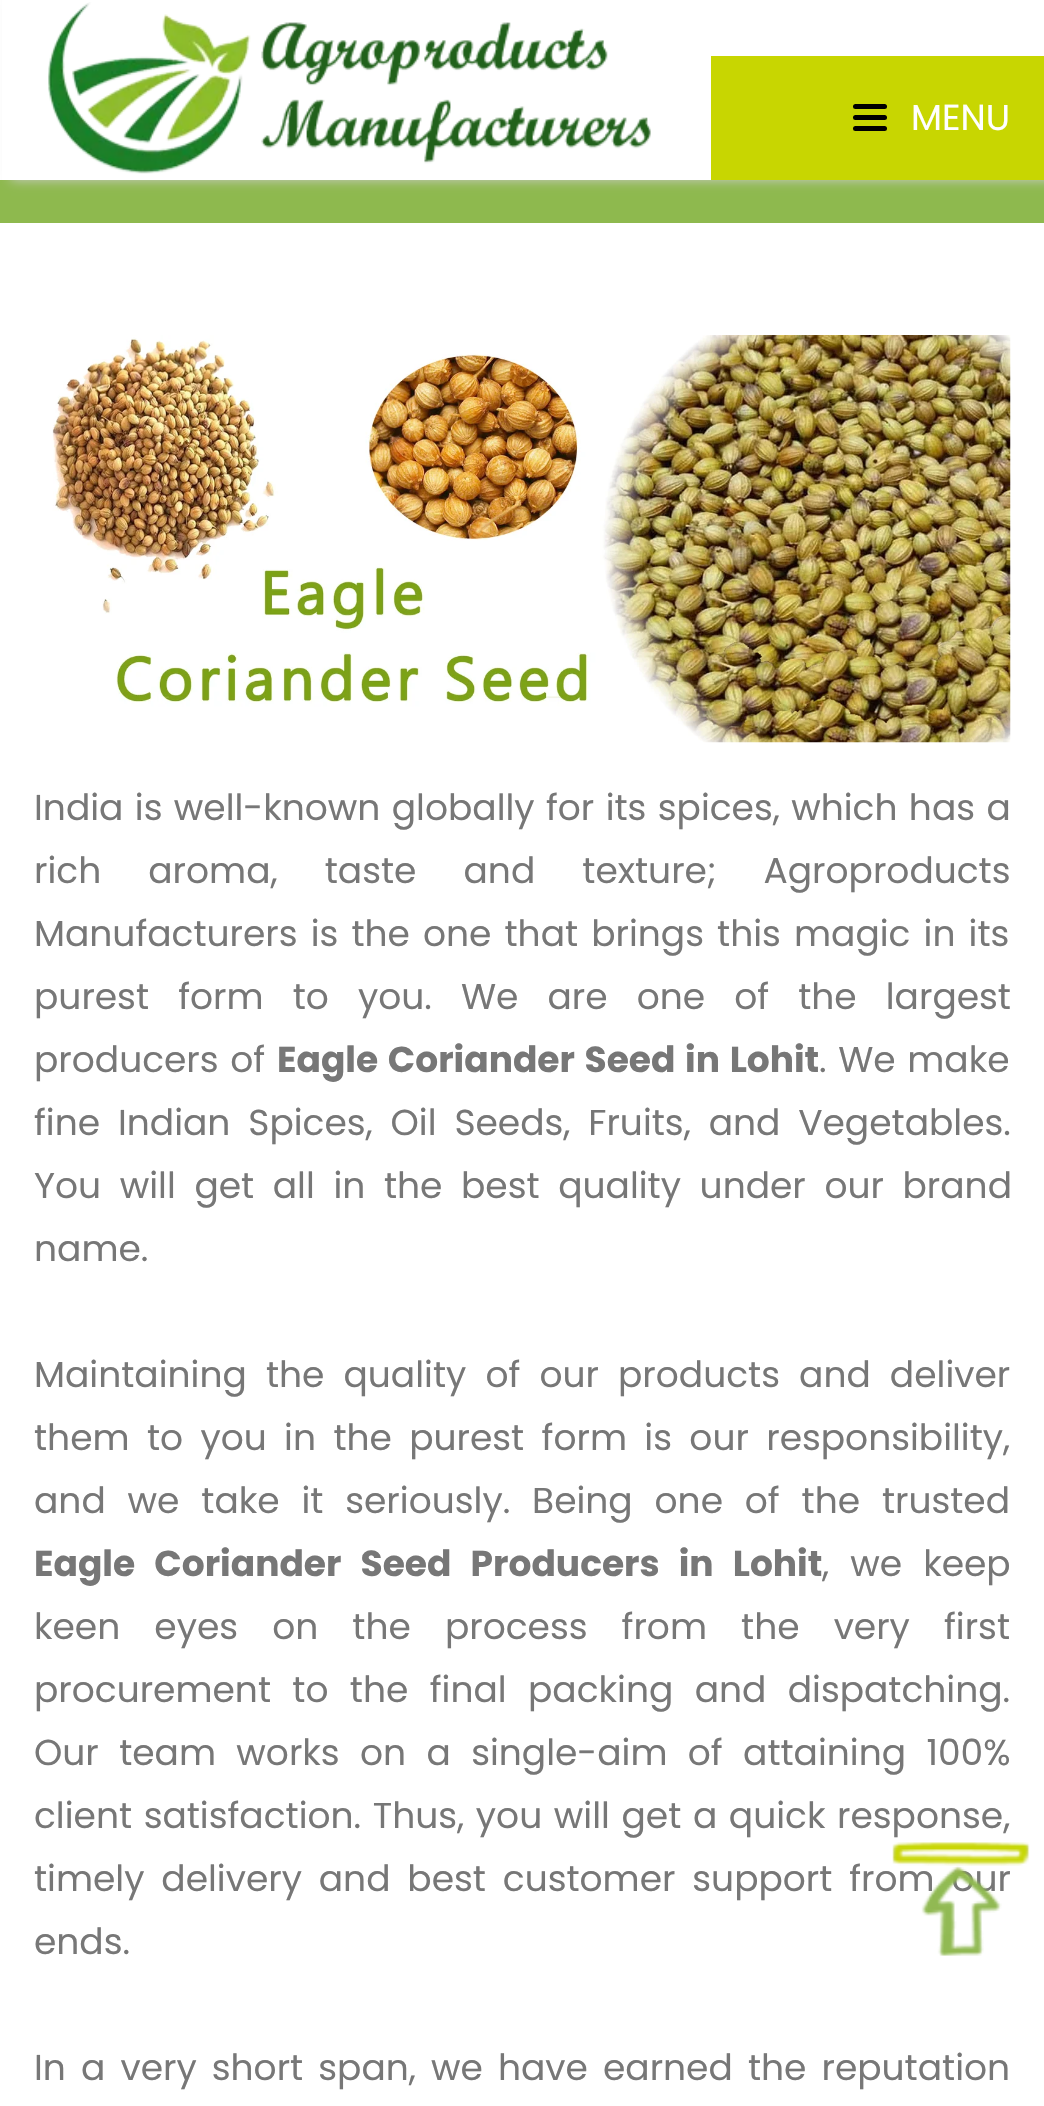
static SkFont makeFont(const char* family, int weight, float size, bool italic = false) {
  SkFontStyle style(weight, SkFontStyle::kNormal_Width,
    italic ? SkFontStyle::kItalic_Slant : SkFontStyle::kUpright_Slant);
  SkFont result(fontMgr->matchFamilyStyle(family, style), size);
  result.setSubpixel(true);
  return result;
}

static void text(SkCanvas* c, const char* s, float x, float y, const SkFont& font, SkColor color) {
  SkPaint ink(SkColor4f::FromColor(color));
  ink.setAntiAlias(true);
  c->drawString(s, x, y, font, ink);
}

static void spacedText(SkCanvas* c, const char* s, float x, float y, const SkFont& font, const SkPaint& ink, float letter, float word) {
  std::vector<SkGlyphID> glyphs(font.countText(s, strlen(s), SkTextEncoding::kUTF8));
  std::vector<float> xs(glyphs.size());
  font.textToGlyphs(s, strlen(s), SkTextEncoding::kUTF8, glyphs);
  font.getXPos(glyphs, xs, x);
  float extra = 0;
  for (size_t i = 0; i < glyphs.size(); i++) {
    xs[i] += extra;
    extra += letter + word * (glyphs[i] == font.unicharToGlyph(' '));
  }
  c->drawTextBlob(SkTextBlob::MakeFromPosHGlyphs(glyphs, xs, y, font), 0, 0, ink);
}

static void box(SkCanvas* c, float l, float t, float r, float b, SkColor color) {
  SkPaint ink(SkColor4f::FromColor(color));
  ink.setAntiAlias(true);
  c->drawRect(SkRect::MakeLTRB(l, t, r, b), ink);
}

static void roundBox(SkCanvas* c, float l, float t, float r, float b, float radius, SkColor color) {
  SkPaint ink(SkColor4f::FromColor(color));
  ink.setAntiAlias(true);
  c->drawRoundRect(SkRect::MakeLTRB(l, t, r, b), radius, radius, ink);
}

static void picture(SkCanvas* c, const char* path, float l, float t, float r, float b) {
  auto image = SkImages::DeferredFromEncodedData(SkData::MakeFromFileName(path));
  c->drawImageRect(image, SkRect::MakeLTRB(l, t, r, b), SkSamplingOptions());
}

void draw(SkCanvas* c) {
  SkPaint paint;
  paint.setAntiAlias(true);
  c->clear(0xffffffff);
  box(c, 0, 180, 1044, 223, 0xff8eb94e);
  paint.setColor(0xffcccccc);
  paint.setMaskFilter(SkMaskFilter::MakeBlur(kNormal_SkBlurStyle, 5.5f));
  c->drawRect(SkRect::MakeLTRB(11, 0, 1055, 180), paint);
  paint.setMaskFilter(nullptr);
  box(c, 2, 0, 1044, 180, 0xffffffff);
  picture(c, "img_01.png", 48, 2, 651, 174);
  box(c, 711, 56, 1044, 180, 0xffc8d601);
  roundBox(c, 853, 104, 887, 109, 2.5f, 0xff000000);
  roundBox(c, 853, 115, 887, 120, 2.5f, 0xff000000);
  roundBox(c, 853, 126, 887, 131, 2.5f, 0xff000000);
  SkFont face1 = makeFont("Poppins", 400, 36);
  text(c, "MENU", 911, 130, face1, 0xffffffff);
  picture(c, "img_02.png", 52, 335, 1011, 743);
  paint.setColor(0xff777777);
  spacedText(c, "India is well-known globally for its spices, which has a", 34, 820, face1, paint, 0, 1.75f);
  spacedText(c, "rich aroma, taste and texture; Agroproducts", 34, 883, face1, paint, 0, 37.5f);
  spacedText(c, "Manufacturers is the one that brings this magic in its", 34, 946, face1, paint, 0, 3.5f);
  spacedText(c, "purest form to you. We are one of the largest", 34, 1009, face1, paint, 0, 19.5f);
  spacedText(c, "producers of", 34, 1072, face1, paint, 0, 2);
  SkFont face2 = makeFont("Poppins", 700, 36);
  spacedText(c, "Eagle Coriander Seed in Lohit", 277, 1072, face2, paint, 0, 2);
  spacedText(c, ". We make", 819, 1072, face1, paint, 0, 2);
  spacedText(c, "fine Indian Spices, Oil Seeds, Fruits, and Vegetables.", 34, 1135, face1, paint, 0, 8.25f);
  spacedText(c, "You will get all in the best quality under our brand", 34, 1198, face1, paint, 0, 9);
  text(c, "name.", 34, 1261, face1, 0xff777777);
  spacedText(c, "Maintaining the quality of our products and deliver", 34, 1387, face1, paint, 0, 9.5f);
  spacedText(c, "them to you in the purest form is our responsibility,", 34, 1450, face1, paint, 0, 7.75f);
  spacedText(c, "and we take it seriously. Being one of the trusted", 34, 1513, face1, paint, 0, 12.25f);
  spacedText(c, "Eagle Coriander Seed Producers in Lohit", 34, 1576, face2, paint, 0, 11.5f);
  spacedText(c, ", we keep", 822, 1576, face1, paint, 0, 11.5f);
  spacedText(c, "keen eyes on the process from the very first", 34, 1639, face1, paint, 0, 24.5f);
  spacedText(c, "procurement to the final packing and dispatching.", 34, 1702, face1, paint, 0, 11.75f);
  spacedText(c, "Our team works on a single-aim of attaining 100%", 34, 1765, face1, paint, 0, 10.75f);
  spacedText(c, "client satisfaction. Thus, you will get a quick response,", 34, 1828, face1, paint, 0, 2);
  spacedText(c, "timely delivery and best customer support from our", 34, 1891, face1, paint, 0, 7.25f);
  text(c, "ends.", 34, 1954, face1, 0xff777777);
  spacedText(c, "In a very short span, we have earned the reputation", 34, 2080, face1, paint, 0, 5.5f);
  picture(c, "img_03.png", 892, 1842, 1030, 1956);
}
